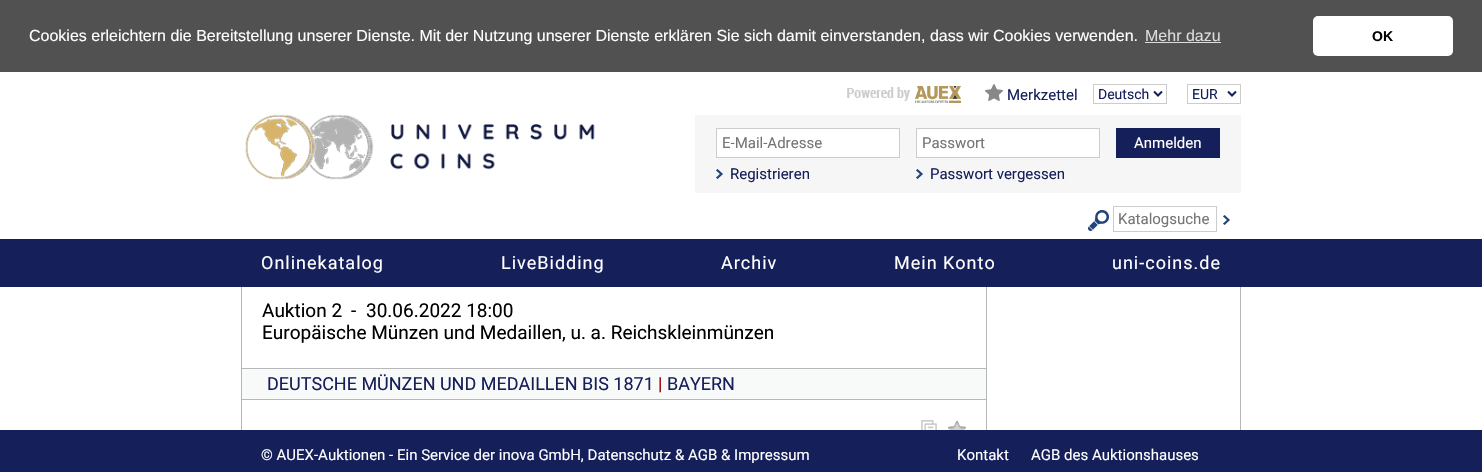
static SkFont makeFont(const char* family, int weight, float size, bool italic = false) {
  SkFontStyle style(weight, SkFontStyle::kNormal_Width,
    italic ? SkFontStyle::kItalic_Slant : SkFontStyle::kUpright_Slant);
  SkFont result(fontMgr->matchFamilyStyle(family, style), size);
  result.setSubpixel(true);
  return result;
}

static void text(SkCanvas* c, const char* s, float x, float y, const SkFont& font, SkColor color) {
  SkPaint ink(SkColor4f::FromColor(color));
  ink.setAntiAlias(true);
  c->drawString(s, x, y, font, ink);
}

static void spacedText(SkCanvas* c, const char* s, float x, float y, const SkFont& font, const SkPaint& ink, float letter, float word) {
  std::vector<SkGlyphID> glyphs(font.countText(s, strlen(s), SkTextEncoding::kUTF8));
  std::vector<float> xs(glyphs.size());
  font.textToGlyphs(s, strlen(s), SkTextEncoding::kUTF8, glyphs);
  font.getXPos(glyphs, xs, x);
  float extra = 0;
  for (size_t i = 0; i < glyphs.size(); i++) {
    xs[i] += extra;
    extra += letter + word * (glyphs[i] == font.unicharToGlyph(' '));
  }
  c->drawTextBlob(SkTextBlob::MakeFromPosHGlyphs(glyphs, xs, y, font), 0, 0, ink);
}

static void box(SkCanvas* c, float l, float t, float r, float b, SkColor color) {
  SkPaint ink(SkColor4f::FromColor(color));
  ink.setAntiAlias(true);
  c->drawRect(SkRect::MakeLTRB(l, t, r, b), ink);
}

static void roundBox(SkCanvas* c, float l, float t, float r, float b, float radius, SkColor color) {
  SkPaint ink(SkColor4f::FromColor(color));
  ink.setAntiAlias(true);
  c->drawRoundRect(SkRect::MakeLTRB(l, t, r, b), radius, radius, ink);
}

static void picture(SkCanvas* c, const char* path, float l, float t, float r, float b) {
  auto image = SkImages::DeferredFromEncodedData(SkData::MakeFromFileName(path));
  c->drawImageRect(image, SkRect::MakeLTRB(l, t, r, b), SkSamplingOptions());
}

void draw(SkCanvas* c) {
  SkPaint paint;
  paint.setAntiAlias(true);
  c->clear(0xffffffff);
  box(c, 0, 0, 1482, 72, 0xff515151);
  SkFont face1 = makeFont("Liberation Sans", 400, 16);
  text(c, "Cookies erleichtern die Bereitstellung unserer Dienste. Mit der Nutzung unserer Dienste erklären Sie sich damit einverstanden, dass wir Cookies verwenden.", 29, 41, face1, 0xffffffff);
  text(c, "Mehr dazu", 1145, 41, face1, 0xffdcdcdc);
  box(c, 1145, 42, 1221, 43, 0xffdcdcdc);
  roundBox(c, 1313, 16, 1453, 56, 5, 0xffffffff);
  SkFont face2 = makeFont("Liberation Sans", 700, 14);
  text(c, "OK", 1372, 41, face2, 0xff000000);
  picture(c, "img_01.png", 847, 86, 961, 103);
  picture(c, "img_02.png", 985, 84, 1003, 101);
  SkFont face3 = makeFont("Roboto", 400, 15);
  text(c, "Merkzettel", 1007, 100, face3, 0xff151f5a);
  paint.setStyle(SkPaint::kStroke_Style);
  paint.setStrokeWidth(1);
  paint.setColor(0xffcccccc);
  c->drawRect(SkRect::MakeLTRB(1093.5f, 84.5f, 1166.5f, 103.5f), paint);
  paint.setStrokeWidth(2);
  paint.setColor(0xff151f5a);
  c->drawPath(SkPathBuilder().moveTo(1154, 91.5f).lineTo(1158, 95.5f).lineTo(1162, 91.5f).detach(), paint);
  SkFont face4 = makeFont("Roboto", 400, 14);
  text(c, "Deutsch", 1098, 99, face4, 0xff151f5a);
  paint.setStrokeWidth(1);
  paint.setColor(0xffcccccc);
  c->drawRect(SkRect::MakeLTRB(1187.5f, 84.5f, 1240.5f, 103.5f), paint);
  paint.setStrokeWidth(2);
  paint.setColor(0xff151f5a);
  c->drawPath(SkPathBuilder().moveTo(1228, 91.5f).lineTo(1232, 95.5f).lineTo(1236, 91.5f).detach(), paint);
  text(c, "EUR", 1192, 99, face4, 0xff151f5a);
  picture(c, "img_03.png", 245, 114, 595, 180);
  box(c, 695, 115, 1241, 193, 0xfff6f6f6);
  paint.setStyle(SkPaint::kFill_Style);
  paint.setColor(0xffffffff);
  c->drawRect(SkRect::MakeLTRB(716.5f, 128.5f, 899.5f, 157.5f), paint);
  paint.setStyle(SkPaint::kStroke_Style);
  paint.setStrokeWidth(1);
  paint.setColor(0xffcccccc);
  c->drawRect(SkRect::MakeLTRB(716.5f, 128.5f, 899.5f, 157.5f), paint);
  text(c, "E-Mail-Adresse", 722, 148, face3, 0xff757575);
  picture(c, "img_04.png", 716, 169, 723, 179);
  text(c, "Registrieren", 730, 179, face3, 0xff151f5a);
  paint.setStyle(SkPaint::kFill_Style);
  paint.setColor(0xffffffff);
  c->drawRect(SkRect::MakeLTRB(916.5f, 128.5f, 1099.5f, 157.5f), paint);
  paint.setStyle(SkPaint::kStroke_Style);
  paint.setColor(0xffcccccc);
  c->drawRect(SkRect::MakeLTRB(916.5f, 128.5f, 1099.5f, 157.5f), paint);
  text(c, "Passwort", 922, 148, face3, 0xff757575);
  picture(c, "img_04.png", 916, 169, 923, 179);
  text(c, "Passwort vergessen", 930, 179, face3, 0xff151f5a);
  box(c, 1116, 128, 1220, 158, 0xff151f5a);
  text(c, "Anmelden", 1134, 148, face3, 0xffffffff);
  picture(c, "img_05.png", 1088, 210, 1109, 231);
  c->drawRect(SkRect::MakeLTRB(1113.5f, 206.5f, 1216.5f, 231.5f), paint);
  text(c, "Katalogsuche", 1118, 224, face3, 0xff757575);
  picture(c, "img_06.png", 1223, 215, 1230, 225);
  box(c, 0, 239, 1482, 287, 0xff151f5a);
  SkFont face5 = makeFont("Roboto", 400, 18);
  paint.setStyle(SkPaint::kFill_Style);
  paint.setColor(0xffffffff);
  spacedText(c, "Onlinekatalog", 261, 269, face5, paint, 1, 0);
  spacedText(c, "LiveBidding", 501, 269, face5, paint, 1, 0);
  spacedText(c, "Archiv", 721, 269, face5, paint, 1, 0);
  spacedText(c, "Mein Konto", 894, 269, face5, paint, 1, 0);
  spacedText(c, "uni-coins.de", 1112, 269, face5, paint, 1, 0);
  box(c, 1240, 287, 1241, 430, 0xffb6b7b8);
  box(c, 241, 287, 242, 430, 0xffb6b7b8);
  box(c, 986, 287, 987, 430, 0xffb6b7b8);
  SkFont face6 = makeFont("Roboto", 400, 19);
  text(c, "Auktion 2", 262, 317, face6, 0xff000000);
  text(c, "-", 351, 317, face6, 0xff000000);
  text(c, "30.06.2022 18:00", 366, 317, face6, 0xff000000);
  text(c, "Europäische Münzen und Medaillen, u. a. Reichskleinmünzen", 262, 339, face6, 0xff000000);
  box(c, 242, 369, 986, 399, 0xfff8f9f9);
  box(c, 242, 368, 986, 369, 0xffb6b7b8);
  box(c, 242, 399, 986, 400, 0xffb6b7b8);
  text(c, "DEUTSCHE MÜNZEN UND MEDAILLEN BIS 1871", 267, 390, face5, 0xff151f5a);
  text(c, "|", 658, 390, face5, 0xff990000);
  text(c, "BAYERN", 667, 390, face5, 0xff151f5a);
  picture(c, "img_07.png", 921, 420, 937, 430);
  picture(c, "img_08.png", 948, 421, 966, 430);
  box(c, 0, 430, 1482, 472, 0xff151f5a);
  text(c, "© AUEX-Auktionen - Ein Service der inova GmbH, Datenschutz & AGB & Impressum", 261, 460, face3, 0xffffffff);
  text(c, "Kontakt", 957, 460, face3, 0xffffffff);
  text(c, "AGB des Auktionshauses", 1031, 460, face3, 0xffffffff);
}
